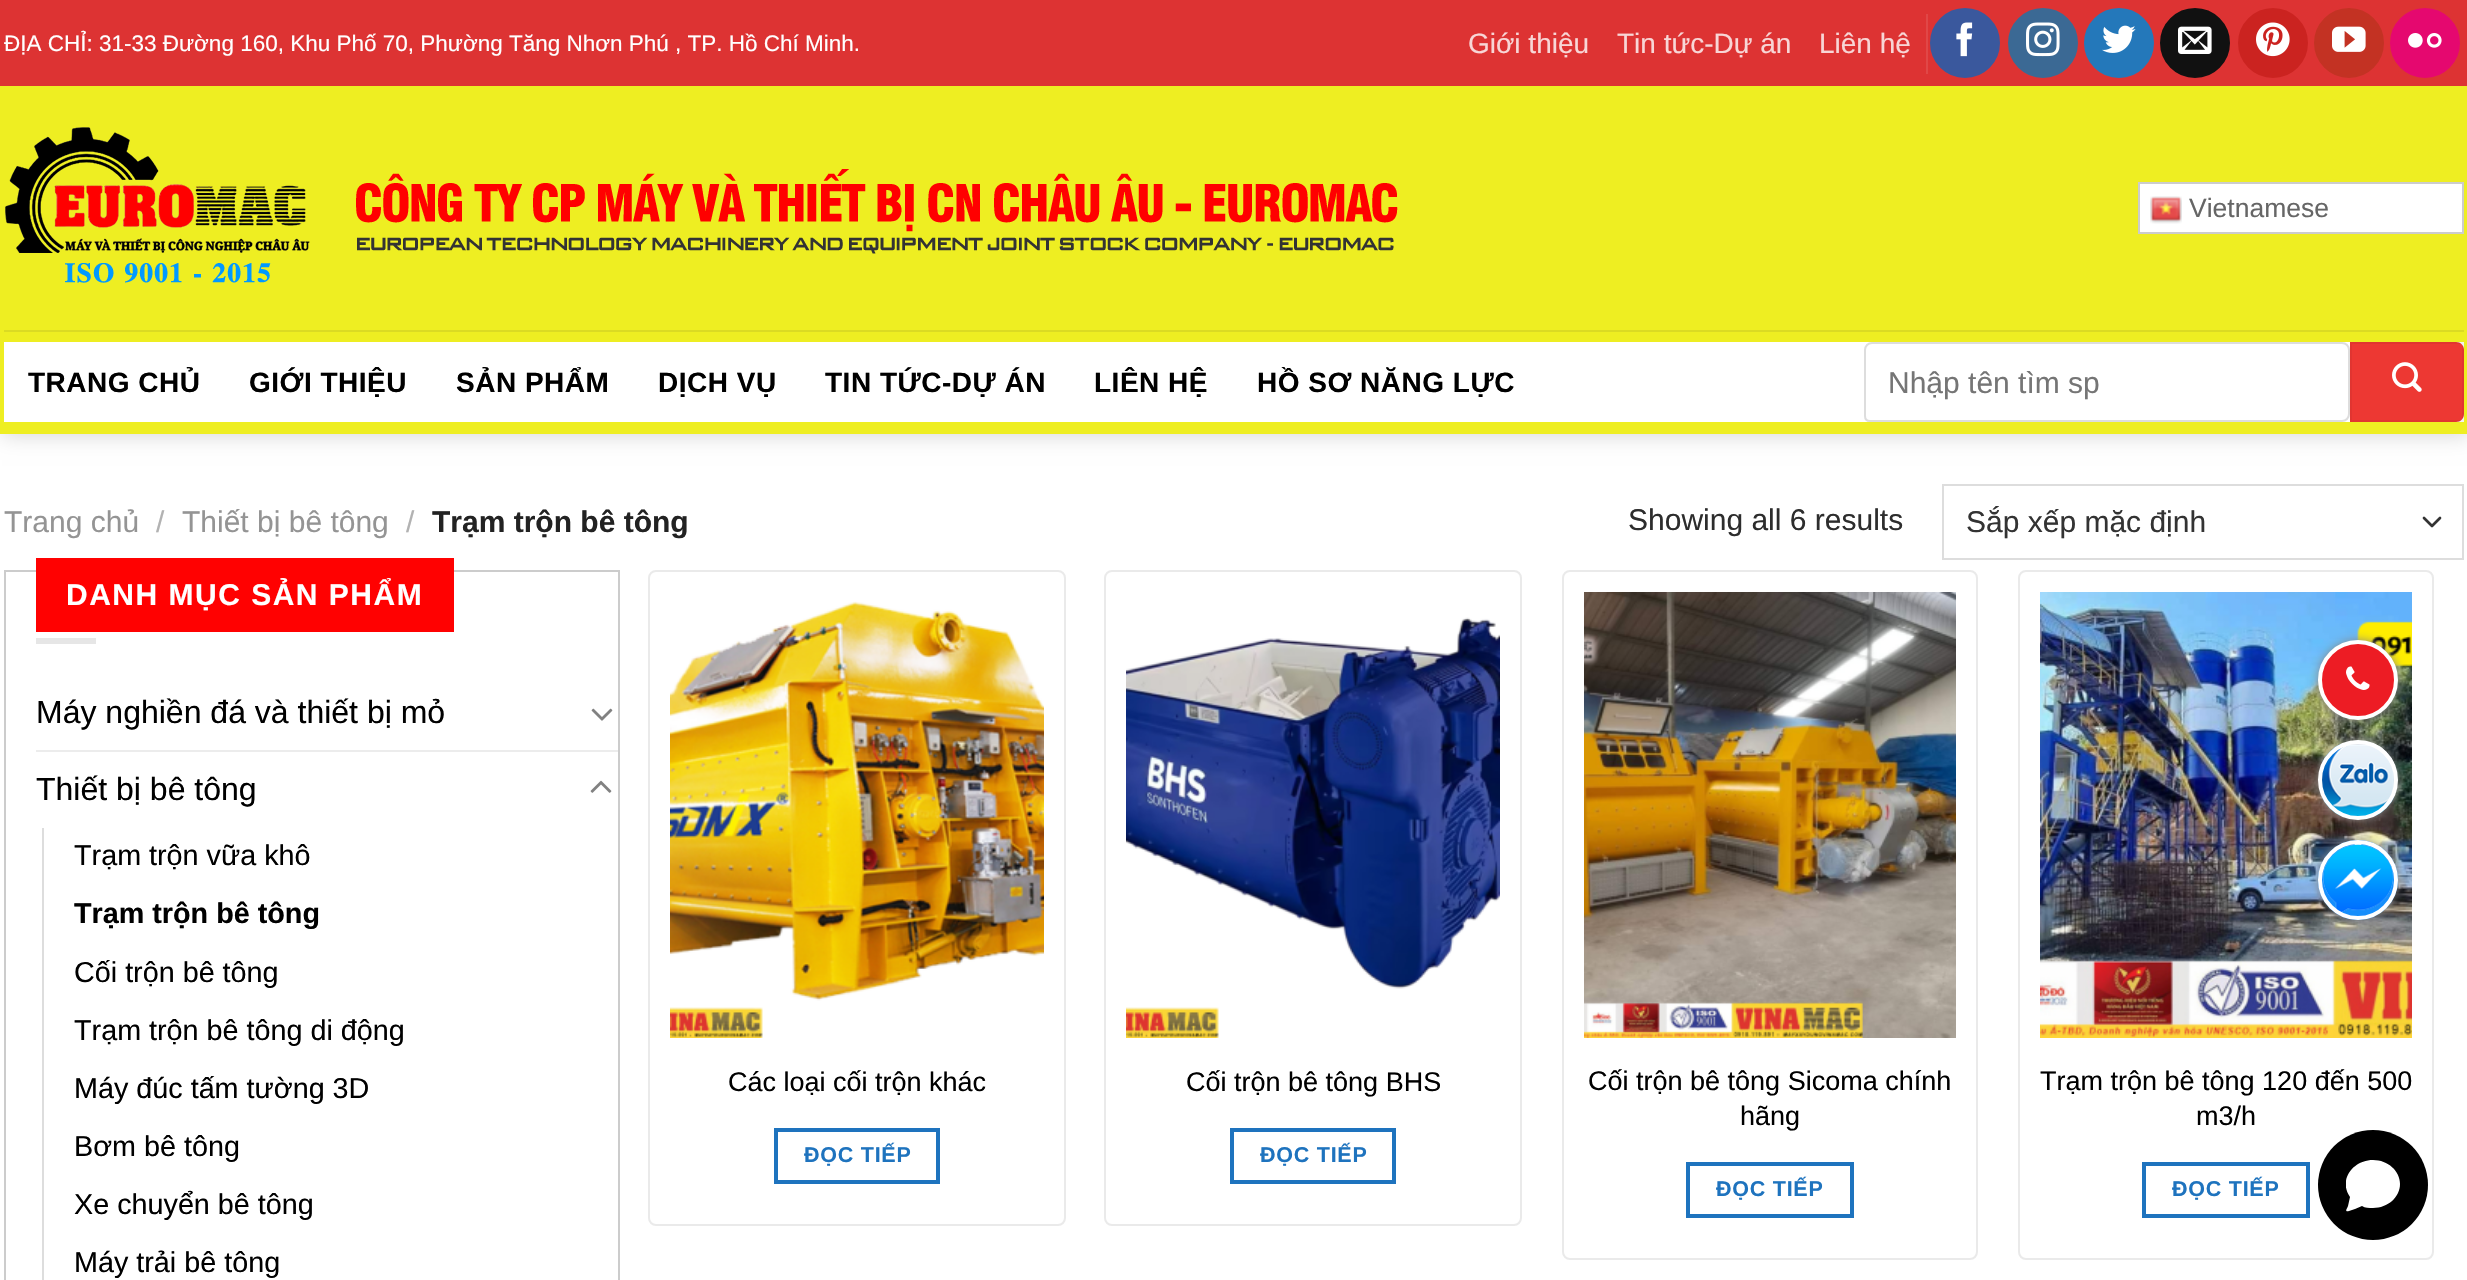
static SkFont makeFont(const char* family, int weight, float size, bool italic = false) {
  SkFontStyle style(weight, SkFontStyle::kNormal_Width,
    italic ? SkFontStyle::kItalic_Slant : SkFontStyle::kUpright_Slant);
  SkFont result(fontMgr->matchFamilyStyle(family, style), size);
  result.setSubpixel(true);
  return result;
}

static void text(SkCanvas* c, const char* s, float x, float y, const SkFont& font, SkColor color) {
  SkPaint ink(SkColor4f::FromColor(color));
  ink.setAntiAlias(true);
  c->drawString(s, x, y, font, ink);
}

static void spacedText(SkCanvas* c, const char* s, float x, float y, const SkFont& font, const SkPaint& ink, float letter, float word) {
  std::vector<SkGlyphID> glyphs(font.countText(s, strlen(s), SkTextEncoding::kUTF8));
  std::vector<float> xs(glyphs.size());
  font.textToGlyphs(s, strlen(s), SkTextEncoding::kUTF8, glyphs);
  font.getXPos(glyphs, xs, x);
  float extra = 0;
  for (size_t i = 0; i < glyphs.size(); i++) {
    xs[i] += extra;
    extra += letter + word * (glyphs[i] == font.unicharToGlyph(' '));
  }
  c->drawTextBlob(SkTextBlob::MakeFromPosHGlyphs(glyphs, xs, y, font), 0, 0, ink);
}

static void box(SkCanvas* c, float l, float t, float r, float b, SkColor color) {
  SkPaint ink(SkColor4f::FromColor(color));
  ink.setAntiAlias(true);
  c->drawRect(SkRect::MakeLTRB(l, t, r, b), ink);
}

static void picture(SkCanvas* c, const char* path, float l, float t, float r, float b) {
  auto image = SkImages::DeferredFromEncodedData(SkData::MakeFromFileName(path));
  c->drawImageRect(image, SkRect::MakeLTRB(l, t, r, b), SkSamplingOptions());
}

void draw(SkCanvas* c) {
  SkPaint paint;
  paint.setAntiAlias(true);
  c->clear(0xffffffff);
  paint.setColor(0x26000000);
  paint.setMaskFilter(SkMaskFilter::MakeBlur(kNormal_SkBlurStyle, 10));
  c->drawRect(SkRect::MakeLTRB(2, 2, 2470, 436), paint);
  paint.setMaskFilter(nullptr);
  box(c, 0, 0, 2467, 86, 0xffdd3333);
  SkFont face1 = makeFont("Liberation Sans", 400, 22.5f);
  text(c, "ĐỊA CHỈ: 31-33 Đường 160, Khu Phố 70, Phường Tăng Nhơn Phú , TP. Hồ Chí Minh.", 4, 51, face1, 0xffffffff);
  SkFont face2 = makeFont("Liberation Sans", 400, 28);
  text(c, "Giới thiệu", 1468, 53, face2, 0xfff8d6d6);
  text(c, "Tin tức-Dự án", 1617, 53, face2, 0xfff8d6d6);
  text(c, "Liên hệ", 1819, 53, face2, 0xfff8d6d6);
  box(c, 1926, 14, 1928, 74, 0xffe04747);
  paint.setColor(0xff3a589d);
  c->drawCircle(1965, 43, 34, paint);
  paint.setStyle(SkPaint::kStroke_Style);
  paint.setStrokeWidth(2);
  c->drawCircle(1965, 43, 34, paint);
  picture(c, "img_01.png", 1956, 22, 1973, 57);
  paint.setStyle(SkPaint::kFill_Style);
  paint.setColor(0xff3b6994);
  c->drawCircle(2043, 43, 34, paint);
  paint.setStyle(SkPaint::kStroke_Style);
  c->drawCircle(2043, 43, 34, paint);
  picture(c, "img_02.png", 2026, 22, 2060, 57);
  paint.setStyle(SkPaint::kFill_Style);
  paint.setColor(0xff2478ba);
  c->drawCircle(2119, 43, 34, paint);
  paint.setStyle(SkPaint::kStroke_Style);
  c->drawCircle(2119, 43, 34, paint);
  picture(c, "img_03.png", 2102, 25, 2136, 53);
  paint.setStyle(SkPaint::kFill_Style);
  paint.setColor(0xff111111);
  c->drawCircle(2195, 43, 34, paint);
  paint.setStyle(SkPaint::kStroke_Style);
  c->drawCircle(2195, 43, 34, paint);
  picture(c, "img_04.png", 2178, 26, 2212, 54);
  paint.setStyle(SkPaint::kFill_Style);
  paint.setColor(0xffcb2320);
  c->drawCircle(2273, 43, 34, paint);
  paint.setStyle(SkPaint::kStroke_Style);
  c->drawCircle(2273, 43, 34, paint);
  picture(c, "img_05.png", 2256, 22, 2290, 57);
  paint.setStyle(SkPaint::kFill_Style);
  paint.setColor(0xffc33223);
  c->drawCircle(2349, 43, 34, paint);
  paint.setStyle(SkPaint::kStroke_Style);
  c->drawCircle(2349, 43, 34, paint);
  picture(c, "img_06.png", 2332, 26, 2366, 52);
  paint.setStyle(SkPaint::kFill_Style);
  paint.setColor(0xffe5086f);
  c->drawCircle(2425, 43, 34, paint);
  paint.setStyle(SkPaint::kStroke_Style);
  c->drawCircle(2425, 43, 34, paint);
  picture(c, "img_07.png", 2408, 33, 2442, 48);
  box(c, 0, 86, 2467, 434, 0xffeeee22);
  picture(c, "img_08.png", 5, 127, 1398, 283);
  paint.setStyle(SkPaint::kFill_Style);
  paint.setColor(0xffffffff);
  c->drawRect(SkRect::MakeLTRB(2139, 183, 2463, 233), paint);
  paint.setStyle(SkPaint::kStroke_Style);
  paint.setColor(0xffcccccc);
  c->drawRect(SkRect::MakeLTRB(2139, 183, 2463, 233), paint);
  picture(c, "img_09.png", 2150, 196, 2182, 224);
  SkFont face3 = makeFont("Liberation Sans", 400, 26.5f);
  text(c, "Vietnamese", 2189, 217, face3, 0xff666666);
  box(c, 4, 330, 2464, 332, 0xffdbdb23);
  box(c, 4, 342, 2464, 422, 0xffffffff);
  SkFont face4 = makeFont("Liberation Sans", 700, 28);
  paint.setStyle(SkPaint::kFill_Style);
  paint.setColor(0xff000000);
  spacedText(c, "TRANG CHỦ", 28, 392, face4, paint, 0.5f, 0);
  spacedText(c, "GIỚI THIỆU", 249, 392, face4, paint, 0.5f, 0);
  spacedText(c, "SẢN PHẨM", 456, 392, face4, paint, 0.5f, 0);
  spacedText(c, "DỊCH VỤ", 658, 392, face4, paint, 0.5f, 0);
  spacedText(c, "TIN TỨC-DỰ ÁN", 825, 392, face4, paint, 0.5f, 0);
  spacedText(c, "LIÊN HỆ", 1094, 392, face4, paint, 0.5f, 0);
  spacedText(c, "HỒ SƠ NĂNG LỰC", 1257, 392, face4, paint, 0.5f, 0);
  paint.setStyle(SkPaint::kStroke_Style);
  paint.setColor(0xffdddddd);
  c->drawPath(SkPathBuilder().moveTo(1872, 343).lineTo(2342, 343).cubicTo(2346, 343, 2349, 346, 2349, 350).lineTo(2349, 414).cubicTo(2349, 418, 2346, 421, 2342, 421).lineTo(1870, 421).cubicTo(1867, 421, 1865, 419, 1865, 416).lineTo(1865, 350).cubicTo(1865, 346, 1868, 343, 1872, 343).close().detach(), paint);
  SkFont face5 = makeFont("Liberation Sans", 400, 30);
  text(c, "Nhập tên tìm sp", 1888, 393, face5, 0xff757575);
  paint.setStyle(SkPaint::kFill_Style);
  paint.setColor(0xffed3833);
  c->drawPath(SkPathBuilder().moveTo(2350, 342).lineTo(2456, 342).cubicTo(2460.5f, 342, 2464, 345.5f, 2464, 350).lineTo(2464, 414).cubicTo(2464, 418.5f, 2460.5f, 422, 2456, 422).lineTo(2350, 422).close().detach(), paint);
  paint.setStyle(SkPaint::kStroke_Style);
  paint.setColor(0x0d000000);
  c->drawRect(SkRect::MakeLTRB(2351, 343, 2463, 421), paint);
  picture(c, "img_10.png", 2392, 362, 2422, 392);
  text(c, "Trang chủ", 4, 532, face5, 0xff949494);
  text(c, "/", 156, 532, face5, 0xffb2b2b2);
  text(c, "Thiết bị bê tông", 182, 532, face5, 0xff949494);
  text(c, "/", 406, 532, face5, 0xffb2b2b2);
  SkFont face6 = makeFont("Liberation Sans", 700, 30);
  text(c, "Trạm trộn bê tông", 432, 532, face6, 0xff222222);
  text(c, "Showing all 6 results", 1628, 530, face5, 0xff2d2d2d);
  paint.setStrokeWidth(2.7f);
  paint.setStrokeCap(SkPaint::kRound_Cap);
  paint.setStrokeJoin(SkPaint::kRound_Join);
  paint.setColor(0xff333333);
  c->drawPath(SkPathBuilder().moveTo(2424, 518).lineTo(2432, 526).lineTo(2440, 518).detach(), paint);
  paint.setStrokeWidth(2);
  paint.setStrokeCap(SkPaint::kButt_Cap);
  paint.setStrokeJoin(SkPaint::kMiter_Join);
  paint.setColor(0xffdddddd);
  c->drawRect(SkRect::MakeLTRB(1943, 485, 2463, 559), paint);
  text(c, "Sắp xếp mặc định", 1966, 532, face5, 0xff333333);
  paint.setColor(0xffcccccc);
  c->drawRect(SkRect::MakeLTRB(5, 571, 619, 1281), paint);
  box(c, 36, 558, 454, 632, 0xffff0101);
  paint.setStyle(SkPaint::kFill_Style);
  paint.setColor(0xffffffff);
  spacedText(c, "DANH MỤC SẢN PHẨM", 66, 605, face6, paint, 1.5f, 0);
  box(c, 36, 638, 96, 644, 0xffe6e6e6);
  SkFont face7 = makeFont("Liberation Sans", 400, 32);
  text(c, "Máy nghiền đá và thiết bị mỏ", 36, 723, face7, 0xff000000);
  picture(c, "img_11.png", 591, 708, 613, 721);
  box(c, 36, 750, 618, 752, 0xffececec);
  text(c, "Thiết bị bê tông", 36, 800, face7, 0xff000000);
  picture(c, "img_12.png", 590, 780, 612, 793);
  box(c, 42, 828, 44, 1280, 0xffdddddd);
  SkFont face8 = makeFont("Liberation Sans", 400, 28.75f);
  text(c, "Trạm trộn vữa khô", 74, 865, face8, 0xff000000);
  SkFont face9 = makeFont("Liberation Sans", 700, 28.75f);
  text(c, "Trạm trộn bê tông", 74, 923, face9, 0xff000000);
  text(c, "Cối trộn bê tông", 74, 982, face8, 0xff000000);
  text(c, "Trạm trộn bê tông di động", 74, 1040, face8, 0xff000000);
  text(c, "Máy đúc tấm tường 3D", 74, 1098, face8, 0xff000000);
  text(c, "Bơm bê tông", 74, 1156, face8, 0xff000000);
  text(c, "Xe chuyển bê tông", 74, 1214, face8, 0xff000000);
  text(c, "Máy trải bê tông", 74, 1272, face8, 0xff000000);
  paint.setStyle(SkPaint::kStroke_Style);
  paint.setColor(0xffeaeaea);
  c->drawRoundRect(SkRect::MakeLTRB(649, 571, 1065, 1225), 7, 7, paint);
  picture(c, "img_13.png", 670, 601, 1044, 1038);
  SkFont face10 = makeFont("Liberation Sans", 400, 27);
  text(c, "Các loại cối trộn khác", 728, 1091, face10, 0xff000000);
  paint.setStrokeWidth(4);
  paint.setColor(0xff1e73be);
  c->drawRect(SkRect::MakeLTRB(776, 1130, 938, 1182), paint);
  SkFont face11 = makeFont("Liberation Sans", 700, 21.5f);
  paint.setStyle(SkPaint::kFill_Style);
  spacedText(c, "ĐỌC TIẾP", 804, 1162, face11, paint, 0.75f, 0);
  paint.setStyle(SkPaint::kStroke_Style);
  paint.setStrokeWidth(2);
  paint.setColor(0xffeaeaea);
  c->drawRoundRect(SkRect::MakeLTRB(1105, 571, 1521, 1225), 7, 7, paint);
  picture(c, "img_14.png", 1126, 617, 1500, 1038);
  text(c, "Cối trộn bê tông BHS", 1186, 1091, face10, 0xff000000);
  paint.setStrokeWidth(4);
  paint.setColor(0xff1e73be);
  c->drawRect(SkRect::MakeLTRB(1232, 1130, 1394, 1182), paint);
  paint.setStyle(SkPaint::kFill_Style);
  spacedText(c, "ĐỌC TIẾP", 1260, 1162, face11, paint, 0.75f, 0);
  paint.setStyle(SkPaint::kStroke_Style);
  paint.setStrokeWidth(2);
  paint.setColor(0xffeaeaea);
  c->drawRoundRect(SkRect::MakeLTRB(1563, 571, 1977, 1259), 7, 7, paint);
  picture(c, "img_15.png", 1584, 592, 1956, 1038);
  text(c, "Cối trộn bê tông Sicoma chính", 1588, 1090, face10, 0xff000000);
  text(c, "hãng", 1740, 1125, face10, 0xff000000);
  paint.setStrokeWidth(4);
  paint.setColor(0xff1e73be);
  c->drawRect(SkRect::MakeLTRB(1688, 1164, 1852, 1216), paint);
  paint.setStyle(SkPaint::kFill_Style);
  spacedText(c, "ĐỌC TIẾP", 1716, 1196, face11, paint, 0.75f, 0);
  paint.setStyle(SkPaint::kStroke_Style);
  paint.setStrokeWidth(2);
  paint.setColor(0xffeaeaea);
  c->drawRoundRect(SkRect::MakeLTRB(2019, 571, 2433, 1259), 7, 7, paint);
  picture(c, "img_16.png", 2040, 592, 2412, 1038);
  text(c, "Trạm trộn bê tông 120 đến 500", 2040, 1090, face10, 0xff000000);
  text(c, "m3/h", 2196, 1125, face10, 0xff000000);
  paint.setStrokeWidth(4);
  paint.setColor(0xff1e73be);
  c->drawRect(SkRect::MakeLTRB(2144, 1164, 2308, 1216), paint);
  paint.setStyle(SkPaint::kFill_Style);
  spacedText(c, "ĐỌC TIẾP", 2172, 1196, face11, paint, 0.75f, 0);
  paint.setColor(0xff888888);
  paint.setMaskFilter(SkMaskFilter::MakeBlur(kNormal_SkBlurStyle, 5));
  c->drawRoundRect(SkRect::MakeLTRB(2318, 640, 2398, 720), 40, 40, paint);
  paint.setMaskFilter(nullptr);
  paint.setColor(0xffed1c24);
  c->drawCircle(2358, 680, 38, paint);
  paint.setStyle(SkPaint::kStroke_Style);
  paint.setColor(0xffffffff);
  c->drawCircle(2358, 680, 38, paint);
  picture(c, "img_17.png", 2346, 666, 2370, 690);
  paint.setStyle(SkPaint::kFill_Style);
  paint.setColor(0xff888888);
  paint.setMaskFilter(SkMaskFilter::MakeBlur(kNormal_SkBlurStyle, 5));
  c->drawRoundRect(SkRect::MakeLTRB(2318, 740, 2398, 820), 40, 40, paint);
  paint.setMaskFilter(nullptr);
  picture(c, "img_18.png", 2322, 744, 2394, 816);
  paint.setStyle(SkPaint::kStroke_Style);
  paint.setColor(0xffffffff);
  c->drawCircle(2358, 780, 38, paint);
  paint.setStyle(SkPaint::kFill_Style);
  paint.setColor(0xff888888);
  paint.setMaskFilter(SkMaskFilter::MakeBlur(kNormal_SkBlurStyle, 5));
  c->drawRoundRect(SkRect::MakeLTRB(2318, 840, 2398, 920), 40, 40, paint);
  paint.setMaskFilter(nullptr);
  paint.setColor(0xff168efb);
  c->drawCircle(2358, 880, 40, paint);
  picture(c, "img_19.png", 2323, 844, 2393, 915);
  paint.setStyle(SkPaint::kStroke_Style);
  paint.setColor(0xffffffff);
  c->drawCircle(2358, 880, 38, paint);
  paint.setStyle(SkPaint::kFill_Style);
  paint.setColor(0xff000000);
  c->drawCircle(2373, 1185, 55, paint);
  c->save();
  c->clipRect(SkRect::MakeLTRB(2346, 1158, 2400, 1212));
  paint.setColor(0xffffffff);
  c->drawPath(SkPathBuilder().moveTo(2373, 1160).cubicTo(2353, 1160, 2338, 1180, 2350, 1197).lineTo(2348, 1206).cubicTo(2347, 1209, 2344, 1212, 2349, 1211).lineTo(2355, 1209).lineTo(2362, 1206).cubicTo(2365, 1208, 2369, 1208, 2373, 1208).cubicTo(2388, 1208, 2400, 1197, 2400, 1184).cubicTo(2400, 1171, 2388, 1160, 2373, 1160).close().detach(), paint);
  c->restore();
}
